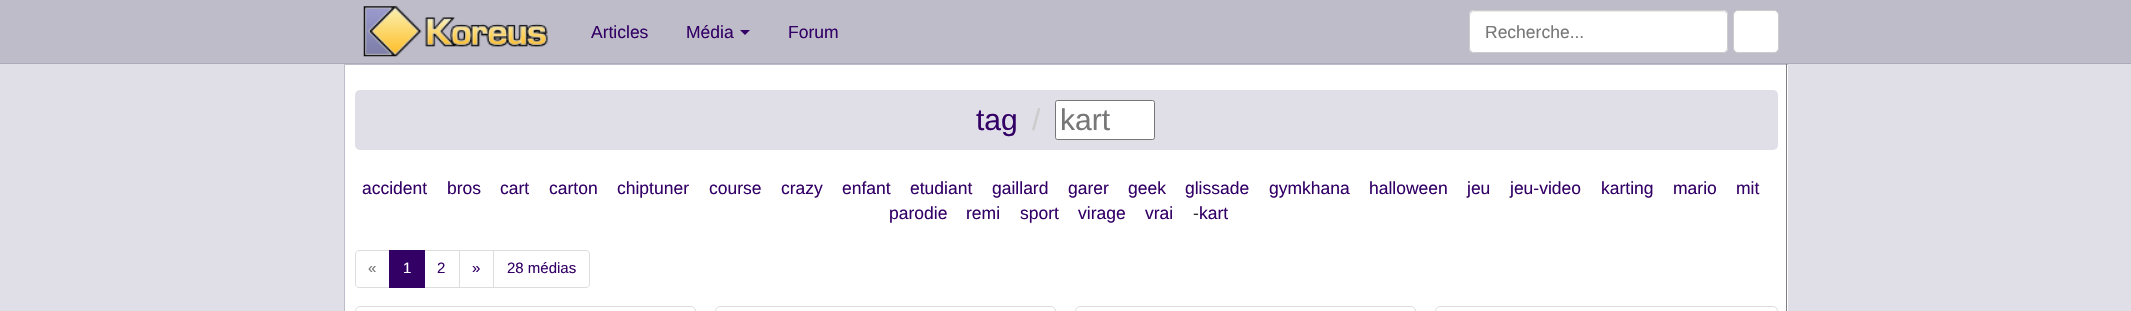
static SkFont makeFont(const char* family, int weight, float size, bool italic = false) {
  SkFontStyle style(weight, SkFontStyle::kNormal_Width,
    italic ? SkFontStyle::kItalic_Slant : SkFontStyle::kUpright_Slant);
  SkFont result(fontMgr->matchFamilyStyle(family, style), size);
  result.setSubpixel(true);
  return result;
}

static void text(SkCanvas* c, const char* s, float x, float y, const SkFont& font, SkColor color) {
  SkPaint ink(SkColor4f::FromColor(color));
  ink.setAntiAlias(true);
  c->drawString(s, x, y, font, ink);
}

static void box(SkCanvas* c, float l, float t, float r, float b, SkColor color) {
  SkPaint ink(SkColor4f::FromColor(color));
  ink.setAntiAlias(true);
  c->drawRect(SkRect::MakeLTRB(l, t, r, b), ink);
}

static void roundBox(SkCanvas* c, float l, float t, float r, float b, float radius, SkColor color) {
  SkPaint ink(SkColor4f::FromColor(color));
  ink.setAntiAlias(true);
  c->drawRoundRect(SkRect::MakeLTRB(l, t, r, b), radius, radius, ink);
}

static void picture(SkCanvas* c, const char* path, float l, float t, float r, float b) {
  auto image = SkImages::DeferredFromEncodedData(SkData::MakeFromFileName(path));
  c->drawImageRect(image, SkRect::MakeLTRB(l, t, r, b), SkSamplingOptions());
}

void draw(SkCanvas* c) {
  SkPaint paint;
  paint.setAntiAlias(true);
  c->clear(0xffe0dfe7);
  box(c, 0, 0, 2131, 63, 0xffbebcc9);
  box(c, 0, 63, 2131, 64, 0xffacaaba);
  picture(c, "img_01.png", 363, 6, 548, 57);
  SkFont face1 = makeFont("Liberation Sans", 400, 17.5f);
  text(c, "Articles", 591, 38, face1, 0xff330066);
  text(c, "Média", 686, 38, face1, 0xff330066);
  paint.setColor(0xff330066);
  c->drawPath(SkPathBuilder().moveTo(740, 30).lineTo(750, 30).lineTo(745, 35).close().detach(), paint);
  text(c, "Forum", 788, 38, face1, 0xff330066);
  roundBox(c, 1469, 10, 1728, 53, 5, 0xffffffff);
  paint.setColor(0xffececec);
  c->drawPath(SkPathBuilder().moveTo(1474, 12).lineTo(1722, 12).cubicTo(1725, 12, 1726, 14, 1726, 16).lineTo(1726, 15).cubicTo(1726, 13, 1724, 11, 1722, 11).lineTo(1474, 11).cubicTo(1472, 11, 1470, 13, 1470, 15).lineTo(1470, 16).cubicTo(1470, 14, 1472, 12, 1474, 12).close().detach(), paint);
  paint.setStyle(SkPaint::kStroke_Style);
  paint.setStrokeWidth(1);
  paint.setColor(0xffcccccc);
  c->drawRoundRect(SkRect::MakeLTRB(1469.5f, 10.5f, 1727.5f, 52.5f), 4.5f, 4.5f, paint);
  text(c, "Recherche...", 1485, 38, face1, 0xff777777);
  paint.setStyle(SkPaint::kFill_Style);
  paint.setColor(0xffffffff);
  c->drawRoundRect(SkRect::MakeLTRB(1733.5f, 10.5f, 1778.5f, 52.5f), 4.5f, 4.5f, paint);
  paint.setStyle(SkPaint::kStroke_Style);
  paint.setColor(0xffcccccc);
  c->drawRoundRect(SkRect::MakeLTRB(1733.5f, 10.5f, 1778.5f, 52.5f), 4.5f, 4.5f, paint);
  box(c, 345, 65, 1788, 311, 0xffffffff);
  box(c, 344, 64, 1788, 65, 0xffbebcc9);
  box(c, 1786, 64, 1787, 311, 0xff7f7d86);
  box(c, 344, 64, 345, 311, 0xffbebcc9);
  roundBox(c, 355, 90, 1778, 150, 5, 0xffe0dfe7);
  SkFont face2 = makeFont("Liberation Sans", 400, 30);
  text(c, "tag", 976, 130, face2, 0xff330066);
  text(c, "/", 1032, 130, face2, 0xffcccccc);
  paint.setStyle(SkPaint::kFill_Style);
  paint.setColor(0xffffffff);
  c->drawRoundRect(SkRect::MakeLTRB(1055.5f, 100.5f, 1154.5f, 139.5f), 2, 2, paint);
  paint.setStyle(SkPaint::kStroke_Style);
  paint.setColor(0xff767676);
  c->drawRoundRect(SkRect::MakeLTRB(1055.5f, 100.5f, 1154.5f, 139.5f), 2, 2, paint);
  text(c, "kart", 1060, 130, face2, 0xff777777);
  text(c, "accident", 362, 194, face1, 0xff330066);
  text(c, "bros", 447, 194, face1, 0xff330066);
  text(c, "cart", 500, 194, face1, 0xff330066);
  text(c, "carton", 549, 194, face1, 0xff330066);
  text(c, "chiptuner", 617, 194, face1, 0xff330066);
  text(c, "course", 709, 194, face1, 0xff330066);
  text(c, "crazy", 781, 194, face1, 0xff330066);
  text(c, "enfant", 842, 194, face1, 0xff330066);
  text(c, "etudiant", 910, 194, face1, 0xff330066);
  text(c, "gaillard", 992, 194, face1, 0xff330066);
  text(c, "garer", 1068, 194, face1, 0xff330066);
  text(c, "geek", 1128, 194, face1, 0xff330066);
  text(c, "glissade", 1185, 194, face1, 0xff330066);
  text(c, "gymkhana", 1269, 194, face1, 0xff330066);
  text(c, "halloween", 1369, 194, face1, 0xff330066);
  text(c, "jeu", 1467, 194, face1, 0xff330066);
  text(c, "jeu-video", 1510, 194, face1, 0xff330066);
  text(c, "karting", 1601, 194, face1, 0xff330066);
  text(c, "mario", 1673, 194, face1, 0xff330066);
  text(c, "mit", 1736, 194, face1, 0xff330066);
  text(c, "parodie", 889, 219, face1, 0xff330066);
  text(c, "remi", 966, 219, face1, 0xff330066);
  text(c, "sport", 1020, 219, face1, 0xff330066);
  text(c, "virage", 1078, 219, face1, 0xff330066);
  text(c, "vrai", 1145, 219, face1, 0xff330066);
  text(c, "-", 1193, 219, face1, 0xff333333);
  text(c, "kart", 1199, 219, face1, 0xff330066);
  paint.setColor(0xffdddddd);
  c->drawPath(SkPathBuilder().moveTo(359, 250.5f).lineTo(389.5f, 250.5f).lineTo(389.5f, 287.5f).lineTo(359, 287.5f).cubicTo(357, 287.5f, 355.5f, 286, 355.5f, 284).lineTo(355.5f, 254).cubicTo(355.5f, 252, 357, 250.5f, 359, 250.5f).close().detach(), paint);
  SkFont face3 = makeFont("Liberation Sans", 400, 15);
  text(c, "«", 368, 273, face3, 0xff777777);
  c->drawRect(SkRect::MakeLTRB(424.5f, 250.5f, 459.5f, 287.5f), paint);
  box(c, 389, 250, 425, 288, 0xff330066);
  text(c, "1", 403, 273, face3, 0xffffffff);
  text(c, "2", 437, 273, face3, 0xff330066);
  c->drawRect(SkRect::MakeLTRB(459.5f, 250.5f, 493.5f, 287.5f), paint);
  text(c, "»", 472, 273, face3, 0xff330066);
  paint.setStyle(SkPaint::kFill_Style);
  paint.setColor(0xffffffff);
  c->drawPath(SkPathBuilder().moveTo(493.5f, 250.5f).lineTo(586, 250.5f).cubicTo(588, 250.5f, 589.5f, 252, 589.5f, 254).lineTo(589.5f, 284).cubicTo(589.5f, 286, 588, 287.5f, 586, 287.5f).lineTo(493.5f, 287.5f).close().detach(), paint);
  paint.setStyle(SkPaint::kStroke_Style);
  paint.setColor(0xffdddddd);
  c->drawPath(SkPathBuilder().moveTo(493.5f, 250.5f).lineTo(586, 250.5f).cubicTo(588, 250.5f, 589.5f, 252, 589.5f, 254).lineTo(589.5f, 284).cubicTo(589.5f, 286, 588, 287.5f, 586, 287.5f).lineTo(493.5f, 287.5f).close().detach(), paint);
  text(c, "28 médias", 507, 273, face3, 0xff330066);
  c->drawRoundRect(SkRect::MakeLTRB(355.5f, 306.5f, 695.5f, 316.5f), 4.5f, 4.5f, paint);
  c->drawRoundRect(SkRect::MakeLTRB(715.5f, 306.5f, 1055.5f, 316.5f), 4.5f, 4.5f, paint);
  c->drawRoundRect(SkRect::MakeLTRB(1075.5f, 306.5f, 1415.5f, 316.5f), 4.5f, 4.5f, paint);
  c->drawRoundRect(SkRect::MakeLTRB(1435.5f, 306.5f, 1777.5f, 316.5f), 4.5f, 4.5f, paint);
}
